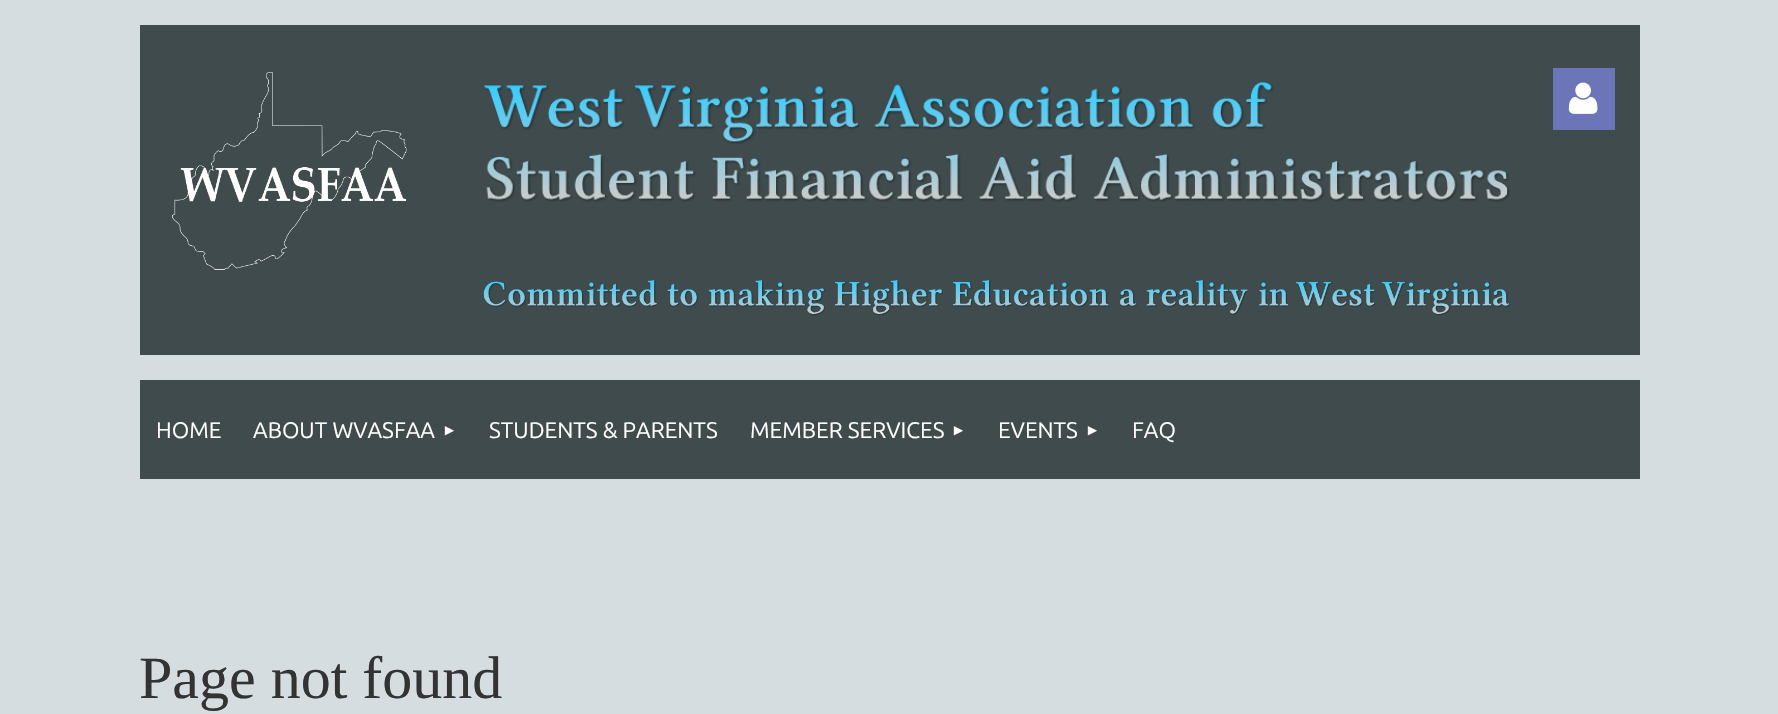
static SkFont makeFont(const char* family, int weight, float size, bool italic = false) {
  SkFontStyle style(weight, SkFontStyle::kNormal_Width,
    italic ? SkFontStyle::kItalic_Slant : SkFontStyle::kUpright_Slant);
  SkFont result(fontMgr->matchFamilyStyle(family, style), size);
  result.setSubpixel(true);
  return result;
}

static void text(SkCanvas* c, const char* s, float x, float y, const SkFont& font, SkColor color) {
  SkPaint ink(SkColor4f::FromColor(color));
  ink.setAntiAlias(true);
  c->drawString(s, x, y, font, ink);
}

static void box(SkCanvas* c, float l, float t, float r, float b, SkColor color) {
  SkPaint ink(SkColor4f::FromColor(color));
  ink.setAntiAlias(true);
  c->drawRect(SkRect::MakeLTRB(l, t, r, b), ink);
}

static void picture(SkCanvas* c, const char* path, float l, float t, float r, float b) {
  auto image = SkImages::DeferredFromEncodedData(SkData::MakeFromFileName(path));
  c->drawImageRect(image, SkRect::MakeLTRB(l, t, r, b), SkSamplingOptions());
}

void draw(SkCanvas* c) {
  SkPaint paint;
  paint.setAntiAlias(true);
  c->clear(0xffd6dde1);
  box(c, 140, 25, 1640, 355, 0xff404b4d);
  picture(c, "img_01.png", 171, 71, 407, 270);
  picture(c, "img_02.png", 484, 81, 1510, 202);
  picture(c, "img_03.png", 483, 280, 1510, 316);
  box(c, 1553, 68, 1615, 130, 0xff6c75b7);
  picture(c, "img_04.png", 1568, 82, 1598, 114);
  box(c, 140, 380, 1640, 479, 0xff404b4d);
  SkFont face1 = makeFont("Ubuntu", 400, 22.5f);
  text(c, "HOME", 156, 438, face1, 0xffffffff);
  text(c, "ABOUT WVASFAA", 253, 438, face1, 0xffffffff);
  SkFont face2 = makeFont("Liberation Sans", 400, 15);
  text(c, "►", 442, 435, face2, 0xffffffff);
  text(c, "STUDENTS & PARENTS", 489, 438, face1, 0xffffffff);
  text(c, "MEMBER SERVICES", 750, 438, face1, 0xffffffff);
  text(c, "►", 951, 435, face2, 0xffffffff);
  text(c, "EVENTS", 998, 438, face1, 0xffffffff);
  text(c, "►", 1085, 435, face2, 0xffffffff);
  text(c, "FAQ", 1132, 438, face1, 0xffffffff);
  SkFont face3 = makeFont("Liberation Serif", 400, 60);
  text(c, "Page not found", 139, 698, face3, 0xff333333);
}
